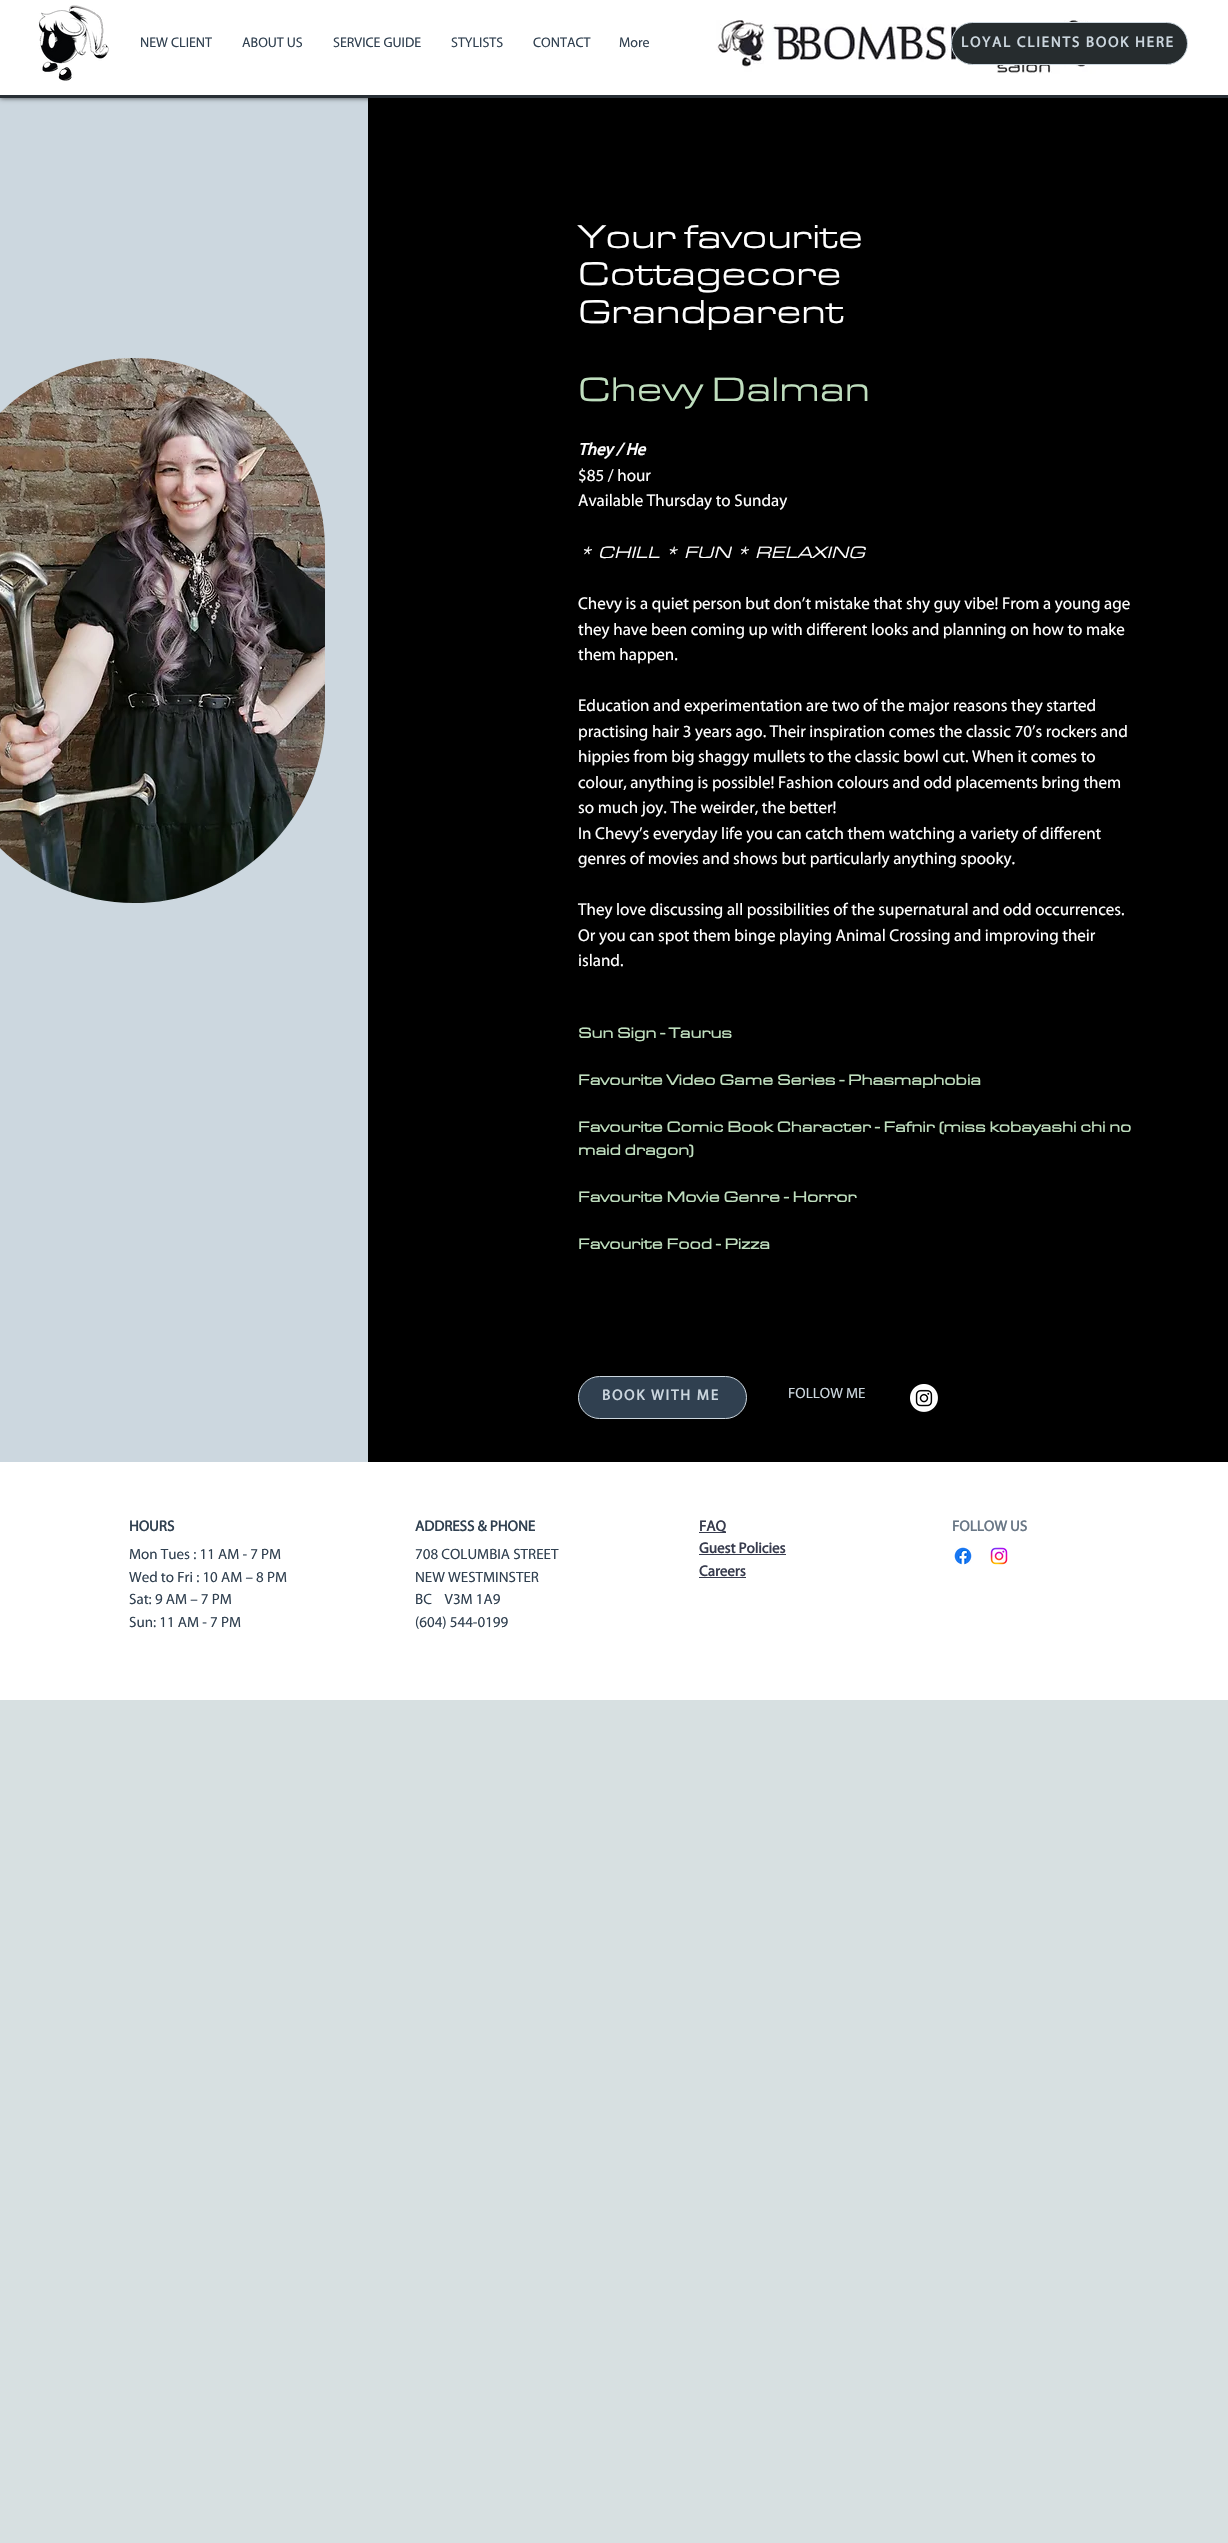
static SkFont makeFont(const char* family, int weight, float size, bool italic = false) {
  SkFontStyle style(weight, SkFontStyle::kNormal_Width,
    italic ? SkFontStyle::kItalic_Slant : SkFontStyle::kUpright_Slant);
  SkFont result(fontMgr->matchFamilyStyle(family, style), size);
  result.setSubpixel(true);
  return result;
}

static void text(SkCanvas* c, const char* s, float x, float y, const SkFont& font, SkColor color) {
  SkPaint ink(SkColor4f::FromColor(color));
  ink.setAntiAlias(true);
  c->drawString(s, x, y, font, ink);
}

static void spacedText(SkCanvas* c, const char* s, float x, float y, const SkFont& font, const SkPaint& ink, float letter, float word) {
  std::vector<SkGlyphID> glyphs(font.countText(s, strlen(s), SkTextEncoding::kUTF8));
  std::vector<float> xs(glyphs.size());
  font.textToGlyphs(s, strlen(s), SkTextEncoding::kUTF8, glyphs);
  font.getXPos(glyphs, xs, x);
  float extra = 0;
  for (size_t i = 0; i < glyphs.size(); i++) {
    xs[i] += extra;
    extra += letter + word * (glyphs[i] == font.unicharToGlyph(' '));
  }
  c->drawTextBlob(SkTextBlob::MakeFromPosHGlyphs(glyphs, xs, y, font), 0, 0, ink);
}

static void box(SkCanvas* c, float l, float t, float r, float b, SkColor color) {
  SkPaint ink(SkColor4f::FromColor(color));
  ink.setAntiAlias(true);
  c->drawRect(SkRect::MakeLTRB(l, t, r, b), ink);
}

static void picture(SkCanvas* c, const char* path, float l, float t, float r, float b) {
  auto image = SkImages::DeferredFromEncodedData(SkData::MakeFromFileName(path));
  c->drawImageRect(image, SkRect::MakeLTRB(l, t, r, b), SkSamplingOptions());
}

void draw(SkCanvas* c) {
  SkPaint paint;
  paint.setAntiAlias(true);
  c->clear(0xffd7e0e1);
  box(c, 0, 98, 368, 1462, 0xffccd7df);
  box(c, 368, 98, 1228, 1462, 0xff000000);
  paint.setColor(0xb3000000);
  paint.setMaskFilter(SkMaskFilter::MakeBlur(kNormal_SkBlurStyle, 2.5f));
  c->drawRect(SkRect::MakeLTRB(0, 0, 1228, 98), paint);
  paint.setMaskFilter(nullptr);
  box(c, 0, 0, 1228, 95, 0xffffffff);
  box(c, 0, 95, 1228, 98, 0xff282f35);
  picture(c, "img_01.png", 38, 5, 109, 81);
  SkFont face1 = makeFont("Myriad", 400, 14);
  text(c, "NEW CLIENT", 140, 47, face1, 0xff304050);
  text(c, "ABOUT US", 242, 47, face1, 0xff304050);
  text(c, "SERVICE GUIDE", 333, 47, face1, 0xff304050);
  text(c, "STYLISTS", 451, 47, face1, 0xff304050);
  text(c, "CONTACT", 533, 47, face1, 0xff304050);
  text(c, "More", 619, 47, face1, 0xff304050);
  picture(c, "img_02.png", 716, 20, 1100, 74);
  paint.setColor(0xff262c2e);
  c->drawRoundRect(SkRect::MakeLTRB(951.5f, 22.5f, 1187.5f, 64.5f), 21, 21, paint);
  paint.setStyle(SkPaint::kStroke_Style);
  paint.setStrokeWidth(1);
  paint.setColor(0xffccd7df);
  c->drawRoundRect(SkRect::MakeLTRB(951.5f, 22.5f, 1187.5f, 64.5f), 21, 21, paint);
  SkFont face2 = makeFont("Myriad", 700, 15);
  paint.setStyle(SkPaint::kFill_Style);
  spacedText(c, "LOYAL CLIENTS BOOK HERE", 961, 47, face2, paint, 1.8f, 0);
  SkFont face3 = makeFont("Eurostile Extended", 400, 34);
  text(c, "Your favourite", 578, 248, face3, 0xffffffff);
  text(c, "Cottagecore", 578, 285, face3, 0xffffffff);
  text(c, "Grandparent", 578, 323, face3, 0xffffffff);
  picture(c, "img_03.png", 0, 358, 325, 903);
  SkFont face4 = makeFont("Eurostile Extended", 400, 35);
  text(c, "Chevy Dalman", 578, 401, face4, 0xffbfdebe);
  SkFont face5 = makeFont("Myriad", 700, 17, true);
  text(c, "They / He", 578, 455, face5, 0xffffffff);
  SkFont face6 = makeFont("Myriad", 400, 17);
  text(c, "$85 / hour", 578, 481, face6, 0xffffffff);
  text(c, "Available Thursday to Sunday", 578, 506, face6, 0xffffffff);
  SkFont face7 = makeFont("Eurostile Extended", 400, 17, true);
  text(c, "* CHILL * FUN * RELAXING", 578, 558, face7, 0xffffffff);
  text(c, "Chevy is a quiet person but don’t mistake that shy guy vibe! From a young age", 578, 609, face6, 0xffffffff);
  text(c, "they have been coming up with different looks and planning on how to make", 578, 635, face6, 0xffffffff);
  text(c, "them happen.", 578, 660, face6, 0xffffffff);
  text(c, "Education and experimentation are two of the major reasons they started", 578, 711, face6, 0xffffffff);
  text(c, "practising hair 3 years ago. Their inspiration comes the classic 70’s rockers and", 578, 737, face6, 0xffffffff);
  text(c, "hippies from big shaggy mullets to the classic bowl cut. When it comes to", 578, 762, face6, 0xffffffff);
  text(c, "colour, anything is possible! Fashion colours and odd placements bring them", 578, 788, face6, 0xffffffff);
  text(c, "so much joy. The weirder, the better!", 578, 813, face6, 0xffffffff);
  text(c, "In Chevy’s everyday life you can catch them watching a variety of different", 578, 839, face6, 0xffffffff);
  text(c, "genres of movies and shows but particularly anything spooky.", 578, 864, face6, 0xffffffff);
  text(c, "They love discussing all possibilities of the supernatural and odd occurrences.", 578, 915, face6, 0xffffffff);
  text(c, "Or you can spot them binge playing Animal Crossing and improving their", 578, 941, face6, 0xffffffff);
  text(c, "island.", 578, 966, face6, 0xffffffff);
  SkFont face8 = makeFont("Eurostile Extended", 700, 15);
  text(c, "Sun Sign - Taurus", 578, 1038, face8, 0xffbfdebe);
  text(c, "Favourite Video Game Series - Phasmaphobia", 578, 1085, face8, 0xffbfdebe);
  text(c, "Favourite Comic Book Character - Fafnir (miss kobayashi chi no", 578, 1132, face8, 0xffbfdebe);
  text(c, "maid dragon)", 578, 1155, face8, 0xffbfdebe);
  text(c, "Favourite Movie Genre - Horror", 578, 1202, face8, 0xffbfdebe);
  text(c, "Favourite Food - Pizza", 578, 1249, face8, 0xffbfdebe);
  paint.setColor(0xff304050);
  c->drawRoundRect(SkRect::MakeLTRB(578.5f, 1376.5f, 746.5f, 1418.5f), 21, 21, paint);
  paint.setStyle(SkPaint::kStroke_Style);
  paint.setColor(0xffccd7df);
  c->drawRoundRect(SkRect::MakeLTRB(578.5f, 1376.5f, 746.5f, 1418.5f), 21, 21, paint);
  paint.setStyle(SkPaint::kFill_Style);
  spacedText(c, "BOOK WITH ME", 602, 1400, face2, paint, 1.8f, 0);
  SkFont face9 = makeFont("Myriad", 400, 15);
  text(c, "FOLLOW ME", 788, 1398, face9, 0xffccd7df);
  picture(c, "img_04.png", 910, 1384, 938, 1412);
  box(c, 0, 1462, 1228, 1700, 0xffffffff);
  text(c, "HOURS", 129, 1531, face2, 0xff304050);
  text(c, "ADDRESS & PHONE", 415, 1531, face2, 0xff304050);
  box(c, 699, 1532, 726, 1533, 0xff373b4d);
  text(c, "FAQ", 699, 1531, face2, 0xff373b4d);
  text(c, "Guest Policies", 699, 1553, face2, 0xff373b4d);
  box(c, 699, 1554, 786, 1555, 0xff373b4d);
  text(c, "Careers", 699, 1576, face2, 0xff373b4d);
  box(c, 699, 1577, 746, 1578, 0xff373b4d);
  text(c, "FOLLOW US", 952, 1531, face2, 0xff697786);
  text(c, "Mon Tues : 11 AM - 7 PM", 129, 1559, face9, 0xff304050);
  text(c, "Wed to Fri : 10 AM – 8 PM", 129, 1582, face9, 0xff304050);
  text(c, "Sat: 9 AM – 7 PM", 129, 1604, face9, 0xff304050);
  text(c, "Sun: 11 AM - 7 PM", 129, 1627, face9, 0xff304050);
  text(c, "708 COLUMBIA STREET", 415, 1559, face9, 0xff304050);
  text(c, "NEW WESTMINSTER", 415, 1582, face9, 0xff304050);
  text(c, "BC    V3M 1A9", 415, 1604, face9, 0xff304050);
  text(c, "(604) 544-0199", 415, 1627, face9, 0xff304050);
  picture(c, "img_05.png", 954, 1547, 972, 1565);
  picture(c, "img_06.png", 990, 1547, 1008, 1565);
}
